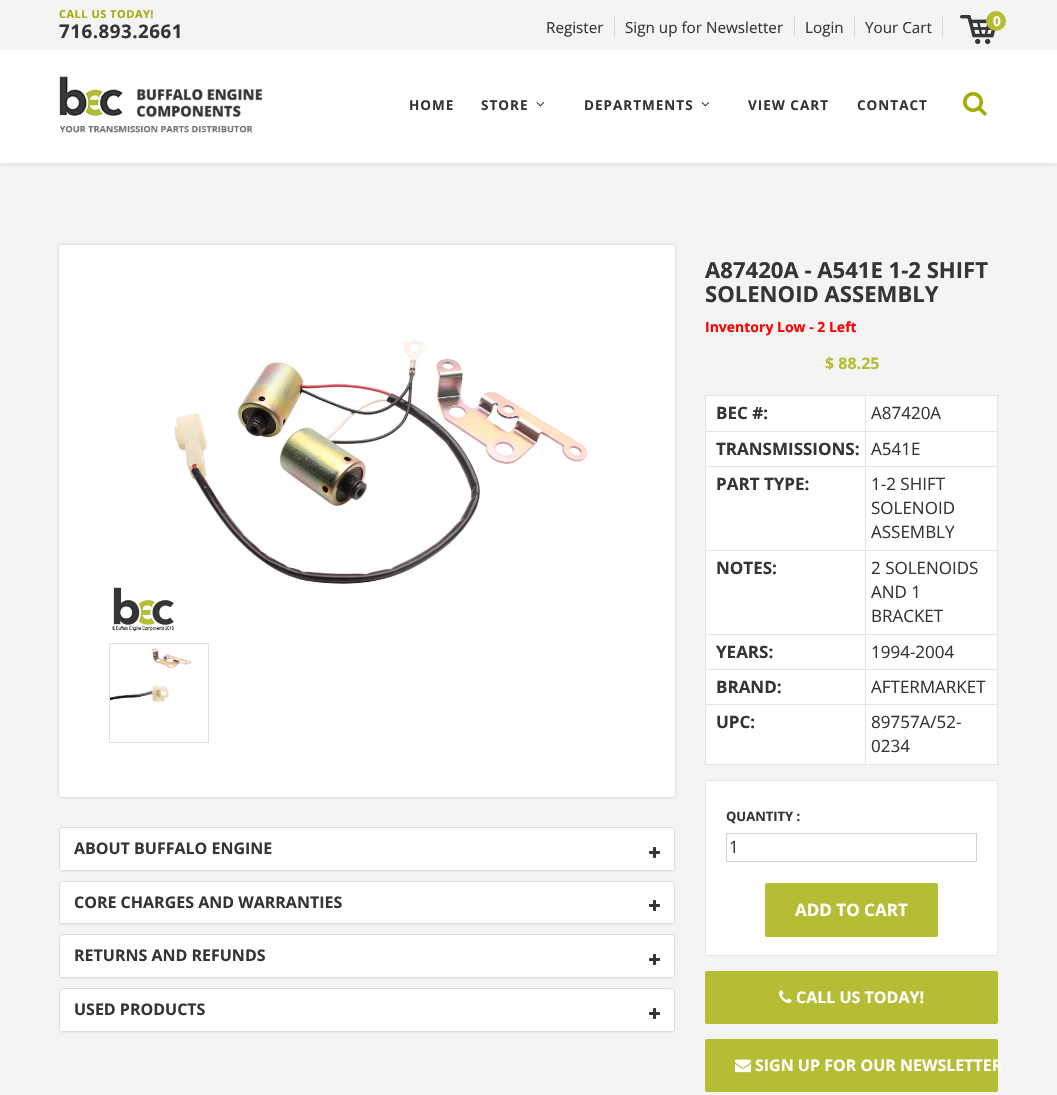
static SkFont makeFont(const char* family, int weight, float size, bool italic = false) {
  SkFontStyle style(weight, SkFontStyle::kNormal_Width,
    italic ? SkFontStyle::kItalic_Slant : SkFontStyle::kUpright_Slant);
  SkFont result(fontMgr->matchFamilyStyle(family, style), size);
  result.setSubpixel(true);
  return result;
}

static void text(SkCanvas* c, const char* s, float x, float y, const SkFont& font, SkColor color) {
  SkPaint ink(SkColor4f::FromColor(color));
  ink.setAntiAlias(true);
  c->drawString(s, x, y, font, ink);
}

static void spacedText(SkCanvas* c, const char* s, float x, float y, const SkFont& font, const SkPaint& ink, float letter, float word) {
  std::vector<SkGlyphID> glyphs(font.countText(s, strlen(s), SkTextEncoding::kUTF8));
  std::vector<float> xs(glyphs.size());
  font.textToGlyphs(s, strlen(s), SkTextEncoding::kUTF8, glyphs);
  font.getXPos(glyphs, xs, x);
  float extra = 0;
  for (size_t i = 0; i < glyphs.size(); i++) {
    xs[i] += extra;
    extra += letter + word * (glyphs[i] == font.unicharToGlyph(' '));
  }
  c->drawTextBlob(SkTextBlob::MakeFromPosHGlyphs(glyphs, xs, y, font), 0, 0, ink);
}

static void box(SkCanvas* c, float l, float t, float r, float b, SkColor color) {
  SkPaint ink(SkColor4f::FromColor(color));
  ink.setAntiAlias(true);
  c->drawRect(SkRect::MakeLTRB(l, t, r, b), ink);
}

static void roundBox(SkCanvas* c, float l, float t, float r, float b, float radius, SkColor color) {
  SkPaint ink(SkColor4f::FromColor(color));
  ink.setAntiAlias(true);
  c->drawRoundRect(SkRect::MakeLTRB(l, t, r, b), radius, radius, ink);
}

static void picture(SkCanvas* c, const char* path, float l, float t, float r, float b) {
  auto image = SkImages::DeferredFromEncodedData(SkData::MakeFromFileName(path));
  c->drawImageRect(image, SkRect::MakeLTRB(l, t, r, b), SkSamplingOptions());
}

void draw(SkCanvas* c) {
  SkPaint paint;
  paint.setAntiAlias(true);
  c->clear(0xffffffff);
  box(c, 0, 0, 1057, 50, 0xfff4f4f4);
  SkFont face1 = makeFont("Open Sans", 700, 11);
  paint.setColor(0xffa4ab0b);
  spacedText(c, "CALL US TODAY!", 59, 18, face1, paint, 0.5f, 0);
  SkFont face2 = makeFont("Open Sans", 700, 18.75f);
  paint.setColor(0xff353535);
  spacedText(c, "716.893.2661", 59, 38, face2, paint, 0.5f, 0);
  SkFont face3 = makeFont("Open Sans", 400, 15.25f);
  text(c, "Register", 546, 33, face3, 0xff353535);
  box(c, 614, 17, 615, 37, 0xffd7d7d7);
  text(c, "Sign up for Newsletter", 625, 33, face3, 0xff353535);
  box(c, 794, 17, 795, 37, 0xffd7d7d7);
  text(c, "Login", 805, 33, face3, 0xff353535);
  box(c, 854, 17, 855, 37, 0xffd7d7d7);
  text(c, "Your Cart", 865, 33, face3, 0xff353535);
  box(c, 942, 17, 943, 37, 0xffd7d7d7);
  picture(c, "img_01.png", 960, 15, 996, 44);
  paint.setColor(0xffb5bd34);
  c->drawCircle(996, 21, 10, paint);
  SkFont face4 = makeFont("Open Sans", 700, 13.5f);
  text(c, "0", 993, 26, face4, 0xffffffff);
  box(c, 0, 163, 1057, 1095, 0xfff4f4f4);
  c->save();
  c->clipRect(SkRect::MakeLTRB(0, 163, 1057, 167));
  paint.setColor(0x0d000000);
  paint.setMaskFilter(SkMaskFilter::MakeBlur(kNormal_SkBlurStyle, 2.5f));
  c->drawRect(SkRect::MakeLTRB(0, 53, 1057, 166), paint);
  paint.setMaskFilter(nullptr);
  c->restore();
  picture(c, "img_02.png", 59, 76, 262, 133);
  paint.setColor(0xff353535);
  spacedText(c, "HOME", 409, 110, face4, paint, 1, 0);
  spacedText(c, "STORE", 481, 110, face4, paint, 1, 0);
  picture(c, "img_03.png", 536, 102, 545, 107);
  spacedText(c, "DEPARTMENTS", 584, 110, face4, paint, 1, 0);
  picture(c, "img_03.png", 701, 102, 710, 107);
  spacedText(c, "VIEW CART", 748, 110, face4, paint, 1, 0);
  spacedText(c, "CONTACT", 857, 110, face4, paint, 1, 0);
  picture(c, "img_04.png", 963, 92, 987, 116);
  paint.setColor(0x2e000000);
  paint.setMaskFilter(SkMaskFilter::MakeBlur(kNormal_SkBlurStyle, 1.5f));
  c->drawRoundRect(SkRect::MakeLTRB(59, 245, 675, 797), 3, 3, paint);
  paint.setMaskFilter(nullptr);
  roundBox(c, 59, 245, 675, 797, 3, 0xffffffff);
  picture(c, "img_05.png", 111, 339, 588, 632);
  paint.setStyle(SkPaint::kStroke_Style);
  paint.setStrokeWidth(1);
  paint.setColor(0xffdfdfdf);
  c->drawRect(SkRect::MakeLTRB(109.5f, 643.5f, 208.5f, 742.5f), paint);
  picture(c, "img_06.png", 110, 648, 192, 702);
  paint.setStyle(SkPaint::kFill_Style);
  paint.setColor(0x0d000000);
  paint.setMaskFilter(SkMaskFilter::MakeBlur(kNormal_SkBlurStyle, 0.5f));
  c->drawRoundRect(SkRect::MakeLTRB(59, 828, 675, 872), 4, 4, paint);
  paint.setMaskFilter(nullptr);
  paint.setStyle(SkPaint::kStroke_Style);
  paint.setColor(0xffdddddd);
  c->drawRoundRect(SkRect::MakeLTRB(59.5f, 827.5f, 674.5f, 870.5f), 3.5f, 3.5f, paint);
  paint.setStyle(SkPaint::kFill_Style);
  paint.setColor(0xffffffff);
  c->drawPath(SkPathBuilder().moveTo(63, 828).lineTo(671, 828).cubicTo(672.5f, 828, 674, 829.5f, 674, 831).lineTo(674, 870).lineTo(60, 870).lineTo(60, 831).cubicTo(60, 829.5f, 61.5f, 828, 63, 828).close().detach(), paint);
  SkFont face5 = makeFont("Open Sans", 700, 16);
  text(c, "ABOUT BUFFALO ENGINE", 74, 854, face5, 0xff353535);
  picture(c, "img_07.png", 649, 847, 660, 858);
  paint.setColor(0x0d000000);
  paint.setMaskFilter(SkMaskFilter::MakeBlur(kNormal_SkBlurStyle, 0.5f));
  c->drawRoundRect(SkRect::MakeLTRB(59, 882, 675, 925), 4, 4, paint);
  paint.setMaskFilter(nullptr);
  paint.setStyle(SkPaint::kStroke_Style);
  paint.setColor(0xffdddddd);
  c->drawRoundRect(SkRect::MakeLTRB(59.5f, 881.5f, 674.5f, 923.5f), 3.5f, 3.5f, paint);
  paint.setStyle(SkPaint::kFill_Style);
  paint.setColor(0xffffffff);
  c->drawPath(SkPathBuilder().moveTo(63, 882).lineTo(671, 882).cubicTo(672.5f, 882, 674, 883.5f, 674, 885).lineTo(674, 923).lineTo(60, 923).lineTo(60, 885).cubicTo(60, 883.5f, 61.5f, 882, 63, 882).close().detach(), paint);
  text(c, "CORE CHARGES AND WARRANTIES", 74, 908, face5, 0xff353535);
  picture(c, "img_07.png", 649, 900, 660, 911);
  paint.setColor(0x0d000000);
  paint.setMaskFilter(SkMaskFilter::MakeBlur(kNormal_SkBlurStyle, 0.5f));
  c->drawRoundRect(SkRect::MakeLTRB(59, 935, 675, 979), 4, 4, paint);
  paint.setMaskFilter(nullptr);
  paint.setStyle(SkPaint::kStroke_Style);
  paint.setColor(0xffdddddd);
  c->drawRoundRect(SkRect::MakeLTRB(59.5f, 934.5f, 674.5f, 977.5f), 3.5f, 3.5f, paint);
  paint.setStyle(SkPaint::kFill_Style);
  paint.setColor(0xffffffff);
  c->drawPath(SkPathBuilder().moveTo(63, 935).lineTo(671, 935).cubicTo(672.5f, 935, 674, 936.5f, 674, 938).lineTo(674, 977).lineTo(60, 977).lineTo(60, 938).cubicTo(60, 936.5f, 61.5f, 935, 63, 935).close().detach(), paint);
  text(c, "RETURNS AND REFUNDS", 74, 961, face5, 0xff353535);
  picture(c, "img_07.png", 649, 954, 660, 965);
  paint.setColor(0x0d000000);
  paint.setMaskFilter(SkMaskFilter::MakeBlur(kNormal_SkBlurStyle, 0.5f));
  c->drawRoundRect(SkRect::MakeLTRB(59, 989, 675, 1033), 4, 4, paint);
  paint.setMaskFilter(nullptr);
  paint.setStyle(SkPaint::kStroke_Style);
  paint.setColor(0xffdddddd);
  c->drawRoundRect(SkRect::MakeLTRB(59.5f, 988.5f, 674.5f, 1031.5f), 3.5f, 3.5f, paint);
  paint.setStyle(SkPaint::kFill_Style);
  paint.setColor(0xffffffff);
  c->drawPath(SkPathBuilder().moveTo(63, 989).lineTo(671, 989).cubicTo(672.5f, 989, 674, 990.5f, 674, 992).lineTo(674, 1031).lineTo(60, 1031).lineTo(60, 992).cubicTo(60, 990.5f, 61.5f, 989, 63, 989).close().detach(), paint);
  text(c, "USED PRODUCTS", 74, 1015, face5, 0xff353535);
  picture(c, "img_07.png", 649, 1008, 660, 1019);
  SkFont face6 = makeFont("Open Sans", 700, 22.1f);
  text(c, "A87420A - A541E 1-2 SHIFT", 705, 278, face6, 0xff353535);
  text(c, "SOLENOID ASSEMBLY", 705, 302, face6, 0xff353535);
  SkFont face7 = makeFont("Open Sans", 700, 14);
  text(c, "Inventory Low - 2 Left", 705, 332, face7, 0xffff0000);
  text(c, "$ 88.25", 825, 369, face5, 0xffb4bf35);
  box(c, 706, 396, 997, 764, 0xffffffff);
  box(c, 705, 395, 998, 396, 0xffe4e4e4);
  box(c, 997, 395, 998, 765, 0xffe4e4e4);
  box(c, 705, 764, 998, 765, 0xffe4e4e4);
  box(c, 705, 395, 706, 765, 0xffe4e4e4);
  SkFont face8 = makeFont("Open Sans", 700, 17);
  text(c, "BEC #:", 716, 419, face8, 0xff353535);
  box(c, 865, 431, 998, 432, 0xffe4e4e4);
  box(c, 865, 466, 998, 467, 0xffe4e4e4);
  box(c, 865, 550, 998, 551, 0xffe4e4e4);
  box(c, 865, 634, 998, 635, 0xffe4e4e4);
  box(c, 865, 669, 998, 670, 0xffe4e4e4);
  box(c, 865, 704, 998, 705, 0xffe4e4e4);
  box(c, 865, 704, 866, 765, 0xffe4e4e4);
  box(c, 705, 704, 866, 705, 0xffe4e4e4);
  box(c, 865, 669, 866, 705, 0xffe4e4e4);
  box(c, 705, 669, 866, 670, 0xffe4e4e4);
  box(c, 865, 634, 866, 670, 0xffe4e4e4);
  box(c, 705, 634, 866, 635, 0xffe4e4e4);
  box(c, 865, 550, 866, 635, 0xffe4e4e4);
  box(c, 705, 550, 866, 551, 0xffe4e4e4);
  box(c, 865, 466, 866, 551, 0xffe4e4e4);
  box(c, 705, 466, 866, 467, 0xffe4e4e4);
  box(c, 865, 431, 866, 467, 0xffe4e4e4);
  box(c, 705, 431, 866, 432, 0xffe4e4e4);
  box(c, 865, 395, 866, 432, 0xffe4e4e4);
  SkFont face9 = makeFont("Open Sans", 400, 17);
  text(c, "A87420A", 871, 419, face9, 0xff353535);
  text(c, "TRANSMISSIONS:", 716, 455, face8, 0xff353535);
  text(c, "A541E", 871, 455, face9, 0xff353535);
  text(c, "PART TYPE:", 716, 490, face8, 0xff353535);
  text(c, "1-2 SHIFT", 871, 490, face9, 0xff353535);
  text(c, "SOLENOID", 871, 514, face9, 0xff353535);
  text(c, "ASSEMBLY", 871, 538, face9, 0xff353535);
  text(c, "NOTES:", 716, 574, face8, 0xff353535);
  text(c, "2 SOLENOIDS", 871, 574, face9, 0xff353535);
  text(c, "AND 1", 871, 598, face9, 0xff353535);
  text(c, "BRACKET", 871, 622, face9, 0xff353535);
  text(c, "YEARS:", 716, 658, face8, 0xff353535);
  text(c, "1994-2004", 871, 658, face9, 0xff353535);
  text(c, "BRAND:", 716, 693, face8, 0xff353535);
  text(c, "AFTERMARKET", 871, 693, face9, 0xff353535);
  text(c, "UPC:", 716, 728, face8, 0xff353535);
  text(c, "89757A/52-", 871, 728, face9, 0xff353535);
  text(c, "0234", 871, 752, face9, 0xff353535);
  c->drawRect(SkRect::MakeLTRB(705.5f, 780.5f, 997.5f, 955.5f), paint);
  paint.setStyle(SkPaint::kStroke_Style);
  paint.setColor(0xffe6e6e6);
  c->drawRect(SkRect::MakeLTRB(705.5f, 780.5f, 997.5f, 955.5f), paint);
  SkFont face10 = makeFont("Open Sans", 700, 13);
  text(c, "QUANTITY :", 726, 821, face10, 0xff353535);
  paint.setColor(0xffd2d2d2);
  c->drawRect(SkRect::MakeLTRB(726.5f, 833.5f, 976.5f, 861.5f), paint);
  text(c, "1", 729, 853, face9, 0xff353535);
  roundBox(c, 765, 883, 938, 937, 2, 0xffb5bd34);
  text(c, "ADD TO CART", 795, 916, face8, 0xffffffff);
  roundBox(c, 705, 971, 998, 1024, 2, 0xffb5bd34);
  picture(c, "img_08.png", 779, 990, 792, 1003);
  text(c, "CALL US TODAY!", 796, 1003, face5, 0xffffffff);
  roundBox(c, 705, 1039, 998, 1092, 2, 0xffb5bd34);
  picture(c, "img_09.png", 735, 1059, 751, 1073);
  text(c, "SIGN UP FOR OUR NEWSLETTER", 755, 1071, face5, 0xffffffff);
}
